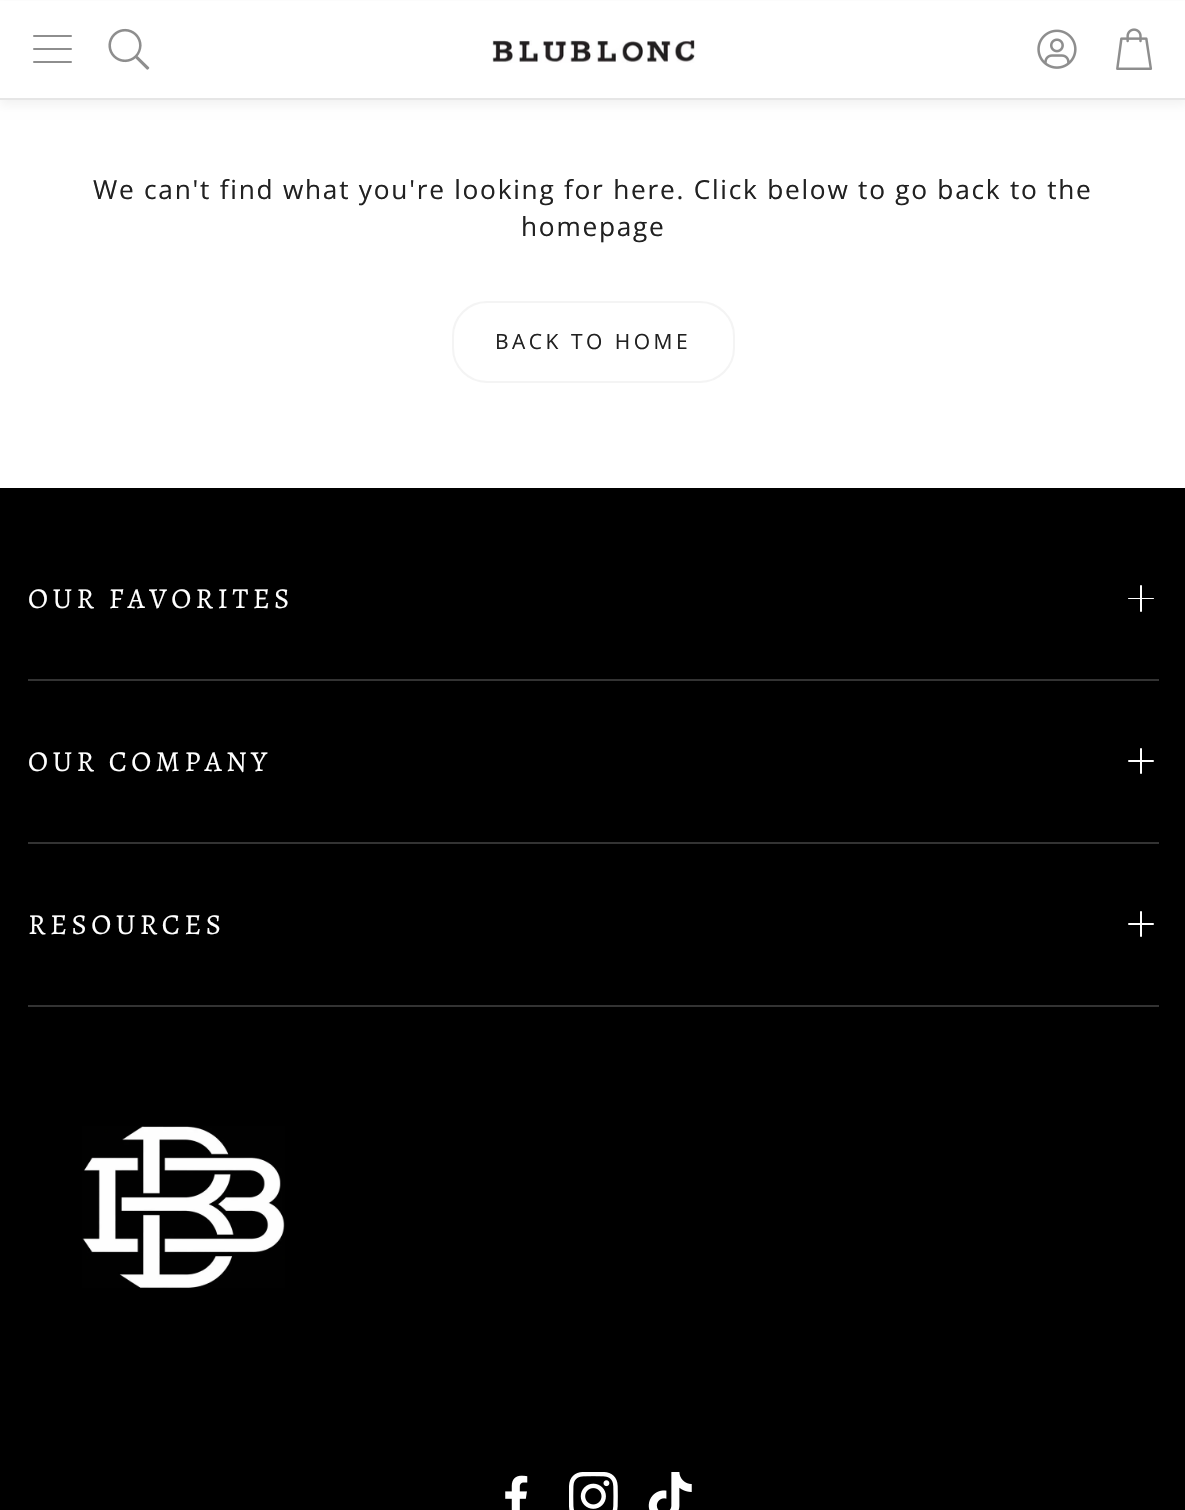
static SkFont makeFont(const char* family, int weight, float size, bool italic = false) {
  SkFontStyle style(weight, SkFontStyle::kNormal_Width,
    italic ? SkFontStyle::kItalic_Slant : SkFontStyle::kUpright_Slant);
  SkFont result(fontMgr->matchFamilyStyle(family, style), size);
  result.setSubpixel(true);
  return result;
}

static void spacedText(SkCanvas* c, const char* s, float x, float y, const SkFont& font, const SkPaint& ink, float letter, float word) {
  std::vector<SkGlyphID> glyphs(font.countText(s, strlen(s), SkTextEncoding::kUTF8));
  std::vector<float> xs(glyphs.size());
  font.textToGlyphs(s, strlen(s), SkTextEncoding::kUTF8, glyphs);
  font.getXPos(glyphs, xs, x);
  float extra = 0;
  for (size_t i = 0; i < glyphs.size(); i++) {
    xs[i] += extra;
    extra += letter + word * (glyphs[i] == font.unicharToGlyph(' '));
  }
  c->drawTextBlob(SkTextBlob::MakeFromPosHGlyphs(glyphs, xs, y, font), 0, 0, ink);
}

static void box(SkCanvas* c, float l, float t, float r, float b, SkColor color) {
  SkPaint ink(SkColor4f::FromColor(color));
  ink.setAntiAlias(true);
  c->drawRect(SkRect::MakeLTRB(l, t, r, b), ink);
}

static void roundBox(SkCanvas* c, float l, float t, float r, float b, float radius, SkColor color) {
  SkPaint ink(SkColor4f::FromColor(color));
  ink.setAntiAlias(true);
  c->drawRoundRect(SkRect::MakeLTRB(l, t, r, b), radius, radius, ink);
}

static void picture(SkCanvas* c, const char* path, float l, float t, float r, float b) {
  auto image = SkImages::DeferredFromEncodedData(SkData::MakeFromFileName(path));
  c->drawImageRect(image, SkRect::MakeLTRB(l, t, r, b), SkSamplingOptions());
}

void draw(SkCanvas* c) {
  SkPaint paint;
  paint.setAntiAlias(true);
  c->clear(0xffffffff);
  paint.setColor(0x0d000000);
  paint.setMaskFilter(SkMaskFilter::MakeBlur(kNormal_SkBlurStyle, 5));
  c->drawRect(SkRect::MakeLTRB(0, 5, 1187, 105), paint);
  paint.setMaskFilter(nullptr);
  box(c, 0, 1, 1185, 98, 0xffffffff);
  box(c, 0, 98, 1185, 100, 0xffe6e6e6);
  roundBox(c, 33, 35, 72, 37, 1, 0xff8e8e8e);
  roundBox(c, 33, 48, 72, 50, 1, 0xff8e8e8e);
  roundBox(c, 33, 61, 72, 63, 1, 0xff8e8e8e);
  picture(c, "img_01.png", 108, 28, 150, 70);
  picture(c, "img_02.png", 492, 40, 695, 63);
  picture(c, "img_03.png", 1037, 29, 1077, 69);
  picture(c, "img_04.png", 1116, 28, 1153, 70);
  SkFont face1 = makeFont("Open Sans", 400, 26.25f);
  paint.setColor(0xff212121);
  spacedText(c, "We can't find what you're looking for here. Click below to go back to the", 93, 199, face1, paint, 1.75f, 0);
  spacedText(c, "homepage", 521, 236, face1, paint, 1.75f, 0);
  paint.setStyle(SkPaint::kStroke_Style);
  paint.setStrokeWidth(2);
  paint.setColor(0xfff4f4f4);
  c->drawRoundRect(SkRect::MakeLTRB(453, 302, 734, 382), 34, 34, paint);
  SkFont face2 = makeFont("Open Sans", 400, 21);
  paint.setStyle(SkPaint::kFill_Style);
  paint.setColor(0xff212121);
  spacedText(c, "BACK TO HOME", 495, 349, face2, paint, 3.5f, 0);
  box(c, 0, 488, 1185, 1510, 0xff000000);
  SkFont face3 = makeFont("Alegreya", 400, 28.9f);
  paint.setColor(0xffffffff);
  spacedText(c, "OUR FAVORITES", 28, 608, face3, paint, 4.4f, 0);
  roundBox(c, 1128, 598, 1154, 599, 0.5f, 0xffffffff);
  roundBox(c, 1140, 585, 1142, 612, 1, 0xffffffff);
  box(c, 28, 679, 1159, 681, 0xff333333);
  spacedText(c, "OUR COMPANY", 28, 771, face3, paint, 4.4f, 0);
  roundBox(c, 1128, 760, 1154, 762, 1, 0xffffffff);
  roundBox(c, 1140, 748, 1142, 774, 1, 0xffffffff);
  box(c, 28, 842, 1159, 844, 0xff333333);
  spacedText(c, "RESOURCES", 28, 934, face3, paint, 4.4f, 0);
  roundBox(c, 1128, 923, 1154, 925, 1, 0xffffffff);
  roundBox(c, 1140, 911, 1142, 937, 1, 0xffffffff);
  box(c, 28, 1005, 1159, 1007, 0xff333333);
  picture(c, "img_05.png", 82, 1126, 285, 1288);
  picture(c, "img_06.png", 505, 1475, 528, 1510);
  picture(c, "img_07.png", 569, 1472, 618, 1510);
  picture(c, "img_08.png", 648, 1472, 692, 1510);
}
